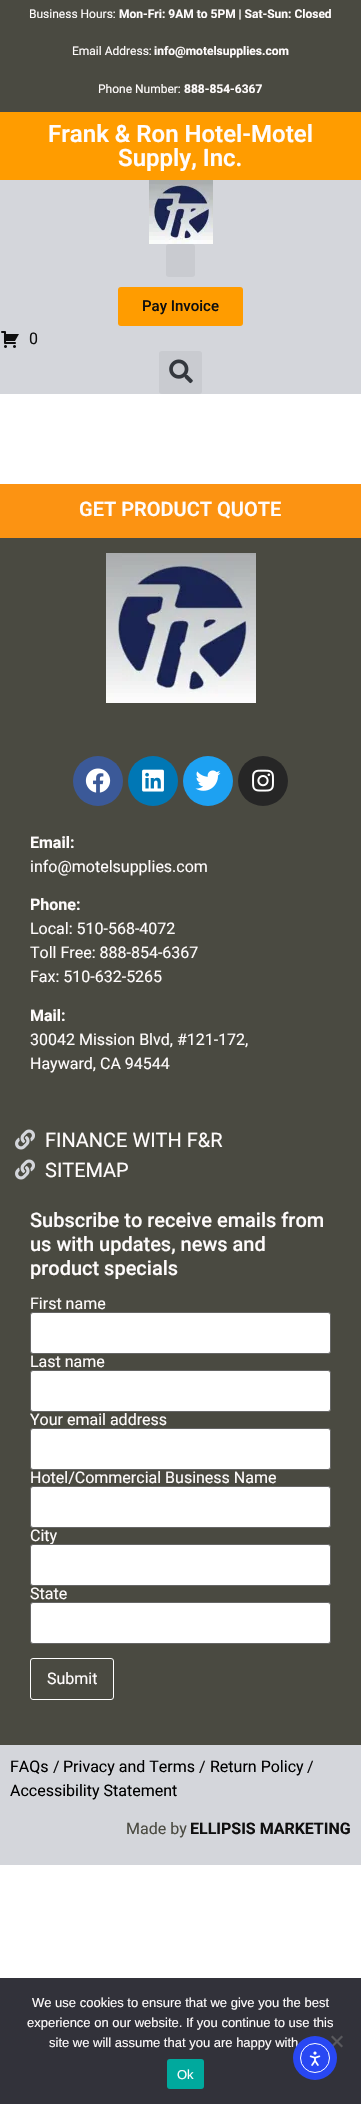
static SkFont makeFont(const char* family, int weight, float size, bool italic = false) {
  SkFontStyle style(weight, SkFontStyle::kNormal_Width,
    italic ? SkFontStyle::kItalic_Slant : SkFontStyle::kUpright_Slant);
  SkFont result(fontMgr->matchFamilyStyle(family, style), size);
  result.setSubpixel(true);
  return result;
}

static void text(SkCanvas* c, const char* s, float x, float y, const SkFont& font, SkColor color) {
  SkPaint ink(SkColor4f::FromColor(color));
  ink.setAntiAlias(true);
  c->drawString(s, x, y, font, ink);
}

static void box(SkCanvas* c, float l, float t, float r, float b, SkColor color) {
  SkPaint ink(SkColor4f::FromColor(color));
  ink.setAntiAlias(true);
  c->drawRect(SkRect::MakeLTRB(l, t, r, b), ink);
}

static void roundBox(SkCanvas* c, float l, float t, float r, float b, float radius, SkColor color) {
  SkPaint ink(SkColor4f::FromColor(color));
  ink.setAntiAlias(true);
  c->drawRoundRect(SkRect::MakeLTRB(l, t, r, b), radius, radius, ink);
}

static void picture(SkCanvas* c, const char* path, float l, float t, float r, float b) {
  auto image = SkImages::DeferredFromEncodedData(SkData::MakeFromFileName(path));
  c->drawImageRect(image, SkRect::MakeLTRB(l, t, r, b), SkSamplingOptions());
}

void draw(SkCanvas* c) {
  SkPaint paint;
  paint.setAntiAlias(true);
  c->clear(0xffffffff);
  box(c, 0, 0, 361, 112, 0xff4a4a41);
  SkFont face1 = makeFont("Roboto", 400, 12);
  text(c, "Business Hours:", 29, 18, face1, 0xfffffcfc);
  SkFont face2 = makeFont("Roboto", 700, 12);
  text(c, "Mon-Fri: 9AM to 5PM | Sat-Sun: Closed", 119, 18, face2, 0xfffffcfc);
  text(c, "Email Address:", 72, 55, face1, 0xfffffcfc);
  text(c, "info@motelsupplies.com", 154, 55, face2, 0xfffffcfc);
  text(c, "Phone Number:", 98, 93, face1, 0xfffffcfc);
  text(c, "888-854-6367", 184, 93, face2, 0xfffffcfc);
  box(c, 0, 112, 361, 180, 0xffff9c00);
  SkFont face3 = makeFont("Roboto", 600, 24);
  text(c, "Frank & Ron Hotel-Motel", 48, 142, face3, 0xfffffcfc);
  text(c, "Supply, Inc.", 118, 166, face3, 0xfffffcfc);
  box(c, 0, 180, 361, 394, 0xffd4d6db);
  picture(c, "img_01.png", 149, 180, 213, 244);
  roundBox(c, 166, 244, 195, 277, 3, 0xffc9cbd0);
  roundBox(c, 118, 287, 243, 326, 3, 0xffff9c00);
  SkFont face4 = makeFont("Roboto", 500, 15);
  text(c, "Pay Invoice", 142, 311, face4, 0xff0f0f0f);
  picture(c, "img_02.png", 1, 331, 19, 348);
  SkFont face5 = makeFont("Roboto", 400, 16);
  text(c, "0", 29, 344, face5, 0xff0f0f0f);
  roundBox(c, 159, 351, 202, 394, 3, 0xffc9cbd0);
  picture(c, "img_03.png", 169, 359, 193, 384);
  box(c, 0, 484, 361, 538, 0xfffc9312);
  SkFont face6 = makeFont("Roboto", 600, 20);
  text(c, "GET PRODUCT QUOTE", 79, 516, face6, 0xfffffcfc);
  box(c, 0, 538, 361, 1745, 0xff4a4a41);
  picture(c, "img_04.png", 106, 553, 256, 703);
  paint.setColor(0xff3b5998);
  c->drawCircle(98, 781, 25, paint);
  picture(c, "img_05.png", 85, 768, 111, 793);
  paint.setColor(0xff0077b5);
  c->drawCircle(153, 781, 25, paint);
  picture(c, "img_06.png", 142, 769, 164, 792);
  paint.setColor(0xff1da1f2);
  c->drawCircle(208, 781, 25, paint);
  picture(c, "img_07.png", 195, 770, 221, 791);
  paint.setColor(0xff262626);
  c->drawCircle(263, 781, 25, paint);
  picture(c, "img_08.png", 252, 769, 274, 792);
  SkFont face7 = makeFont("Roboto", 700, 16);
  text(c, "Email:", 30, 848, face7, 0xfffffcfc);
  text(c, "info@motelsupplies.com", 30, 872, face5, 0xfffffcfc);
  text(c, "Phone:", 30, 910, face7, 0xfffffcfc);
  text(c, "Local: 510-568-4072", 30, 934, face5, 0xfffffcfc);
  text(c, "Toll Free: 888-854-6367", 30, 958, face5, 0xfffffcfc);
  text(c, "Fax: 510-632-5265", 30, 982, face5, 0xfffffcfc);
  text(c, "Mail:", 30, 1021, face7, 0xfffffcfc);
  text(c, "30042 Mission Blvd, #121-172,", 30, 1045, face5, 0xfffffcfc);
  text(c, "Hayward, CA 94544", 30, 1069, face5, 0xfffffcfc);
  picture(c, "img_09.png", 15, 1129, 35, 1150);
  SkFont face8 = makeFont("Roboto", 400, 20);
  text(c, "FINANCE WITH F&R", 45, 1147, face8, 0xfffffcfc);
  picture(c, "img_09.png", 15, 1159, 35, 1180);
  text(c, "SITEMAP", 45, 1177, face8, 0xfffffcfc);
  SkFont face9 = makeFont("Roboto", 500, 20);
  text(c, "Subscribe to receive emails from", 30, 1227, face9, 0xfffffcfc);
  text(c, "us with updates, news and", 30, 1251, face9, 0xfffffcfc);
  text(c, "product specials", 30, 1275, face9, 0xfffffcfc);
  text(c, "First name", 30, 1309, face5, 0xfffffcfc);
  paint.setColor(0xffffffff);
  c->drawRoundRect(SkRect::MakeLTRB(30.5f, 1312.5f, 330.5f, 1353.5f), 2.5f, 2.5f, paint);
  paint.setStyle(SkPaint::kStroke_Style);
  paint.setStrokeWidth(1);
  paint.setColor(0xff666666);
  c->drawRoundRect(SkRect::MakeLTRB(30.5f, 1312.5f, 330.5f, 1353.5f), 2.5f, 2.5f, paint);
  text(c, "Last name", 30, 1367, face5, 0xfffffcfc);
  paint.setStyle(SkPaint::kFill_Style);
  paint.setColor(0xffffffff);
  c->drawRoundRect(SkRect::MakeLTRB(30.5f, 1370.5f, 330.5f, 1411.5f), 2.5f, 2.5f, paint);
  paint.setStyle(SkPaint::kStroke_Style);
  paint.setColor(0xff666666);
  c->drawRoundRect(SkRect::MakeLTRB(30.5f, 1370.5f, 330.5f, 1411.5f), 2.5f, 2.5f, paint);
  text(c, "Your email address", 30, 1425, face5, 0xfffffcfc);
  paint.setStyle(SkPaint::kFill_Style);
  paint.setColor(0xffffffff);
  c->drawRoundRect(SkRect::MakeLTRB(30.5f, 1428.5f, 330.5f, 1469.5f), 2.5f, 2.5f, paint);
  paint.setStyle(SkPaint::kStroke_Style);
  paint.setColor(0xff666666);
  c->drawRoundRect(SkRect::MakeLTRB(30.5f, 1428.5f, 330.5f, 1469.5f), 2.5f, 2.5f, paint);
  text(c, "Hotel/Commercial Business Name", 30, 1483, face5, 0xfffffcfc);
  paint.setStyle(SkPaint::kFill_Style);
  paint.setColor(0xffffffff);
  c->drawRoundRect(SkRect::MakeLTRB(30.5f, 1486.5f, 330.5f, 1527.5f), 2.5f, 2.5f, paint);
  paint.setStyle(SkPaint::kStroke_Style);
  paint.setColor(0xff666666);
  c->drawRoundRect(SkRect::MakeLTRB(30.5f, 1486.5f, 330.5f, 1527.5f), 2.5f, 2.5f, paint);
  text(c, "City", 30, 1541, face5, 0xfffffcfc);
  paint.setStyle(SkPaint::kFill_Style);
  paint.setColor(0xffffffff);
  c->drawRoundRect(SkRect::MakeLTRB(30.5f, 1544.5f, 330.5f, 1585.5f), 2.5f, 2.5f, paint);
  paint.setStyle(SkPaint::kStroke_Style);
  paint.setColor(0xff666666);
  c->drawRoundRect(SkRect::MakeLTRB(30.5f, 1544.5f, 330.5f, 1585.5f), 2.5f, 2.5f, paint);
  text(c, "State", 30, 1599, face5, 0xfffffcfc);
  paint.setStyle(SkPaint::kFill_Style);
  paint.setColor(0xffffffff);
  c->drawRoundRect(SkRect::MakeLTRB(30.5f, 1602.5f, 330.5f, 1643.5f), 2.5f, 2.5f, paint);
  paint.setStyle(SkPaint::kStroke_Style);
  paint.setColor(0xff666666);
  c->drawRoundRect(SkRect::MakeLTRB(30.5f, 1602.5f, 330.5f, 1643.5f), 2.5f, 2.5f, paint);
  paint.setColor(0xffffffff);
  c->drawRoundRect(SkRect::MakeLTRB(30.5f, 1658.5f, 113.5f, 1699.5f), 2.5f, 2.5f, paint);
  text(c, "Submit", 47, 1684, face5, 0xfffffcfc);
  box(c, 0, 1745, 361, 1865, 0xffd4d6db);
  text(c, "FAQs", 10, 1772, face5, 0xff000000);
  text(c, "/", 53, 1772, face5, 0xff0f0f0f);
  text(c, "Privacy and Terms", 63, 1772, face5, 0xff000000);
  text(c, "/", 199, 1772, face5, 0xff0f0f0f);
  text(c, "Return Policy", 210, 1772, face5, 0xff000000);
  text(c, "/", 307, 1772, face5, 0xff0f0f0f);
  text(c, "Accessibility Statement", 10, 1796, face5, 0xff000000);
  text(c, "Made by", 126, 1834, face5, 0xff4a4a41);
  text(c, "ELLIPSIS MARKETING", 190, 1834, face7, 0xff0f0f0f);
  box(c, 0, 1978, 361, 2104, 0xff32323a);
  SkFont face10 = makeFont("Liberation Sans", 400, 13);
  text(c, "We use cookies to ensure that we give you the best", 32, 2007, face10, 0xfffffcfc);
  text(c, "experience on our website. If you continue to use this", 27, 2027, face10, 0xfffffcfc);
  text(c, "site we will assume that you are happy with", 49, 2047, face10, 0xfffffcfc);
  paint.setStyle(SkPaint::kFill_Style);
  paint.setColor(0xff59595d);
  c->drawPath(SkPathBuilder().moveTo(341.5f, 2035.5f).lineTo(343, 2037).lineTo(332.5f, 2047.5f).lineTo(331, 2046).close().detach(), paint);
  c->drawPath(SkPathBuilder().moveTo(331, 2037).lineTo(332.5f, 2035.5f).lineTo(343, 2046).lineTo(341.5f, 2047.5f).close().detach(), paint);
  roundBox(c, 167, 2059, 204, 2089, 3, 0xff00a99d);
  text(c, "Ok", 177, 2079, face10, 0xfffffcfc);
  paint.setColor(0xff2847f3);
  c->drawCircle(315, 2058, 22, paint);
  paint.setStyle(SkPaint::kStroke_Style);
  paint.setColor(0xffffffff);
  c->drawCircle(315, 2058, 14.5f, paint);
  picture(c, "img_10.png", 309, 2051, 321, 2066);
}
